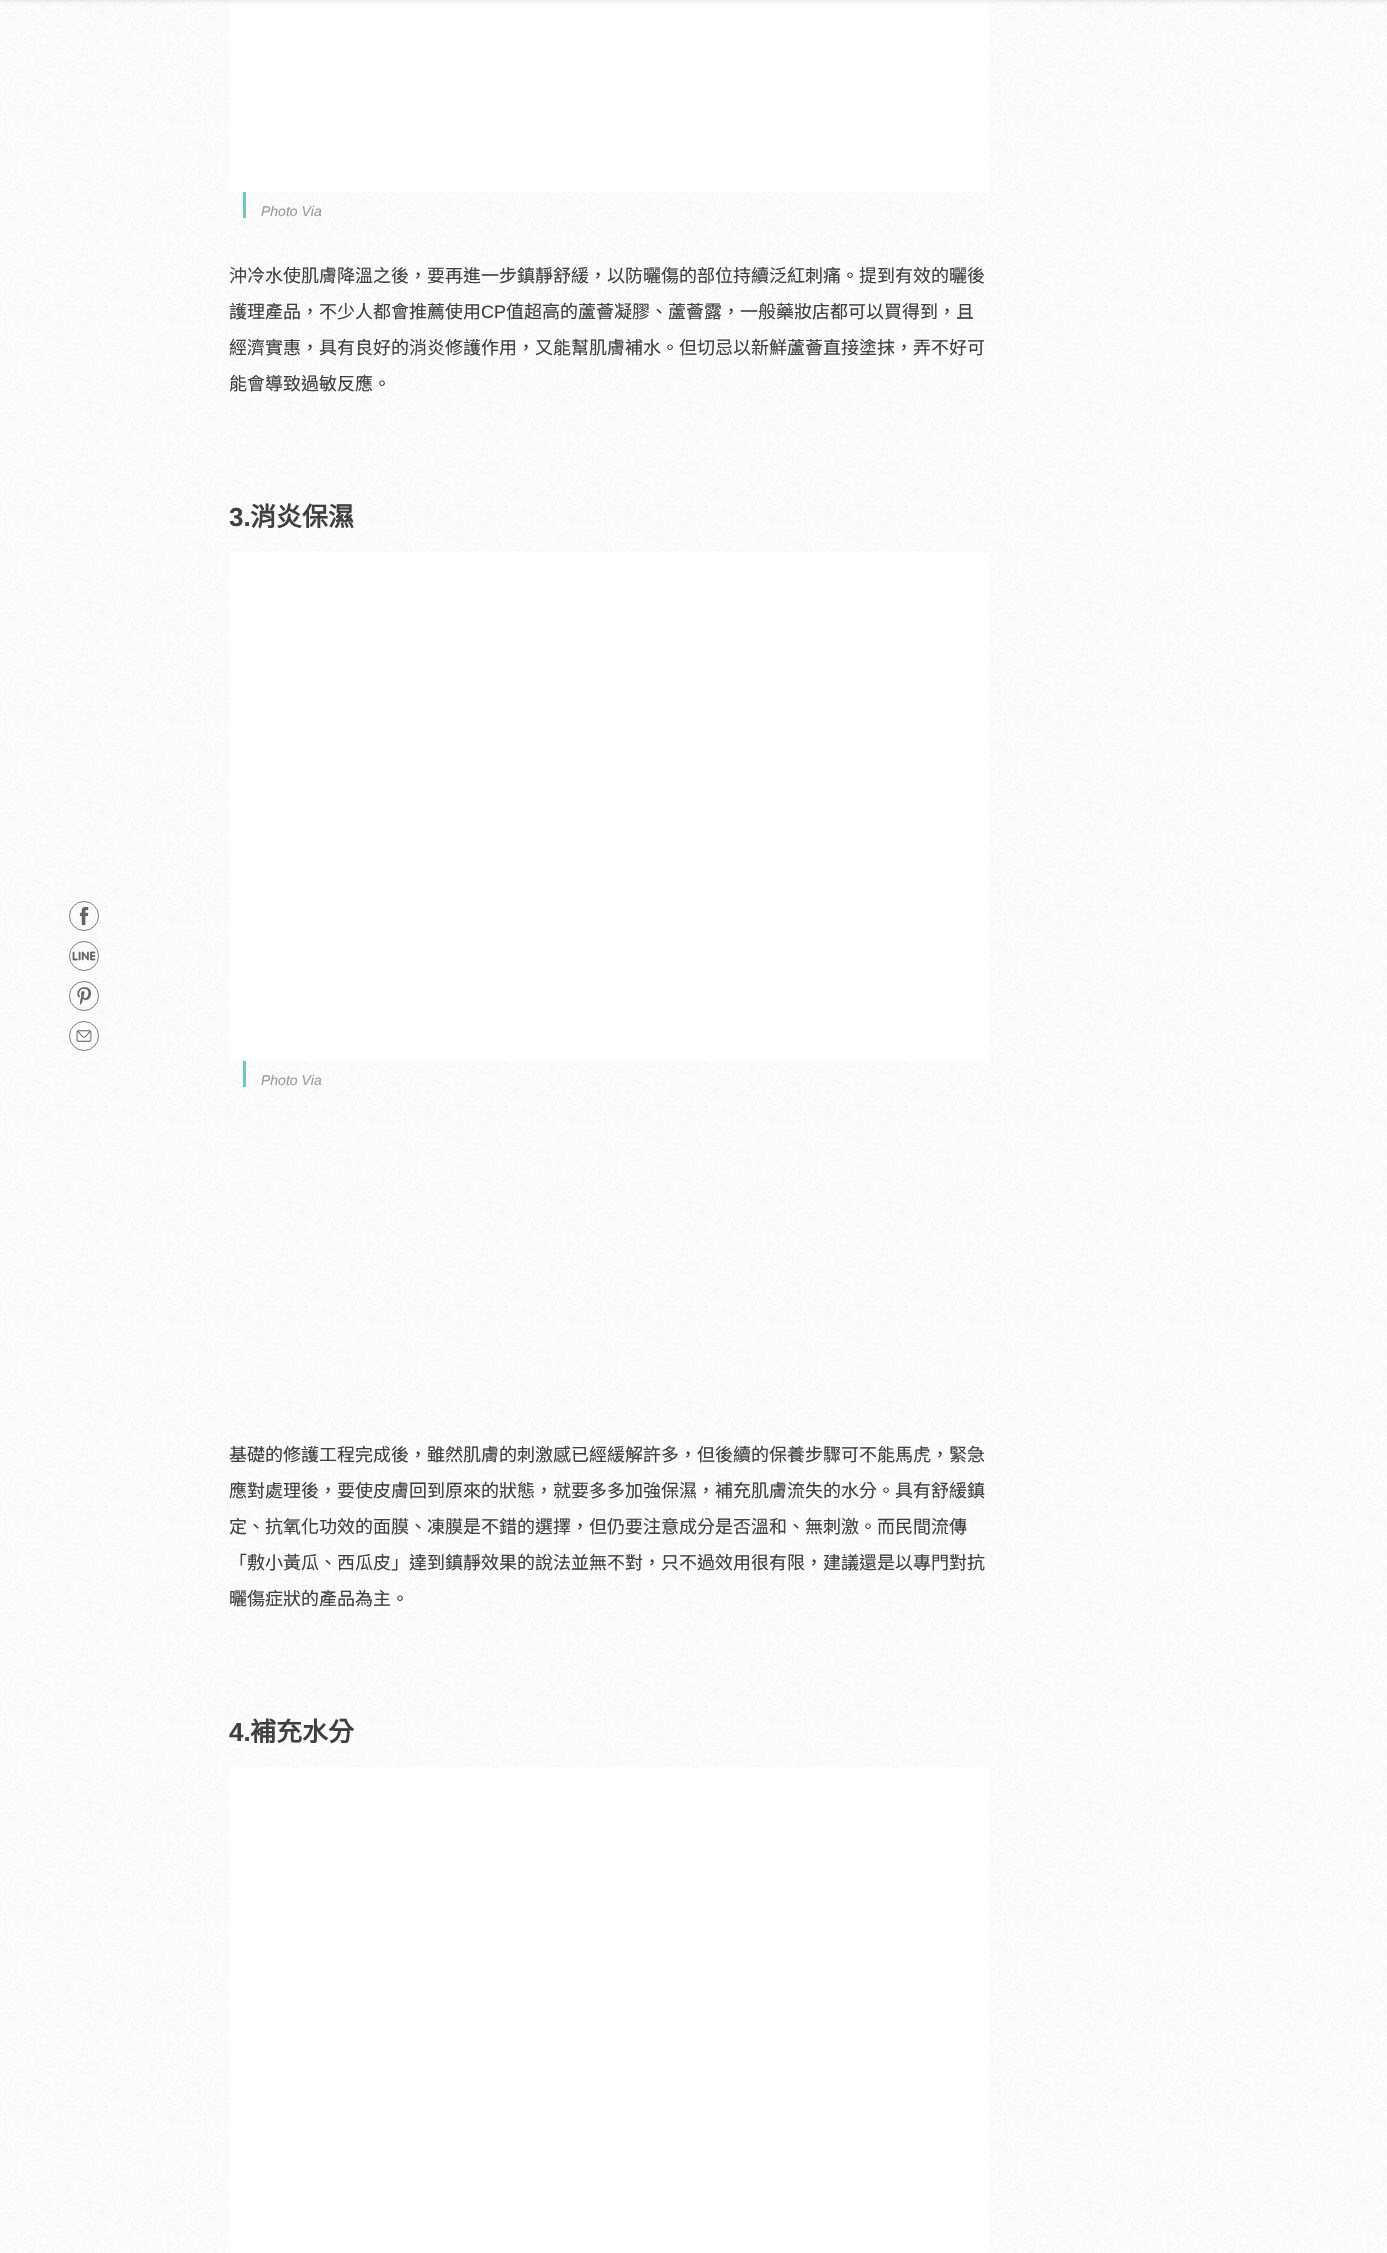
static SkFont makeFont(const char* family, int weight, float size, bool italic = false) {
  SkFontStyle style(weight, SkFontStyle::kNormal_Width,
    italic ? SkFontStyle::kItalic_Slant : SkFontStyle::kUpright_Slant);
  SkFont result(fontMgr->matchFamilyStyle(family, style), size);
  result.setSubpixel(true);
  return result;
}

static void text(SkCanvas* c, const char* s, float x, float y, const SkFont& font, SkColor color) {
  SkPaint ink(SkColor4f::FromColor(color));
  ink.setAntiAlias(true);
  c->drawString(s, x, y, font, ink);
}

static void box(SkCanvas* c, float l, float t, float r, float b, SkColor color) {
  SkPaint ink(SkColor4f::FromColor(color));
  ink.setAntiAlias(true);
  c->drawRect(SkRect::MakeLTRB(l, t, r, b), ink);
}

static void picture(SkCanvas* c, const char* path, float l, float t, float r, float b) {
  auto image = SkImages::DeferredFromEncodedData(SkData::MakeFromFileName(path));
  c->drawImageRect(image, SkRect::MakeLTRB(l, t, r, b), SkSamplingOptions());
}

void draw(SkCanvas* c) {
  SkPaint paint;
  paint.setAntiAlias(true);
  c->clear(0xffffffff);
  picture(c, "img_01.png", 0, 0, 1387, 2253);
  box(c, 229, 0, 989, 192, 0xffffffff);
  paint.setColor(0x26000000);
  paint.setMaskFilter(SkMaskFilter::MakeBlur(kNormal_SkBlurStyle, 2.5f));
  c->drawRect(SkRect::MakeLTRB(0, -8, 1387, 0), paint);
  paint.setMaskFilter(nullptr);
  paint.setStyle(SkPaint::kStroke_Style);
  paint.setStrokeWidth(1);
  paint.setColor(0x99272727);
  c->drawCircle(84, 916, 14.5f, paint);
  picture(c, "img_02.png", 79, 906, 89, 926);
  c->drawCircle(84, 956, 14.5f, paint);
  picture(c, "img_03.png", 72, 951, 96, 961);
  c->drawCircle(84, 996, 14.5f, paint);
  picture(c, "img_04.png", 77, 987, 92, 1005);
  c->drawCircle(84, 1036, 14.5f, paint);
  picture(c, "img_05.png", 76, 1030, 92, 1042);
  box(c, 243, 192, 246, 218, 0xff71c6bc);
  SkFont face1 = makeFont("Liberation Sans", 400, 14, true);
  text(c, "Photo Via", 261, 216, face1, 0xff999999);
  SkFont face2 = makeFont("Noto Sans CJK TC", 400, 18);
  text(c, "沖冷水使肌膚降溫之後，要再進一步鎮靜舒緩，以防曬傷的部位持續泛紅刺痛。提到有效的曬後", 229, 282, face2, 0xff3f3f3f);
  text(c, "護理產品，不少人都會推薦使用", 229, 318, face2, 0xff3f3f3f);
  SkFont face3 = makeFont("Liberation Sans", 400, 18);
  text(c, "CP", 481, 318, face3, 0xff3f3f3f);
  text(c, "值超高的蘆薈凝膠、蘆薈露，一般藥妝店都可以買得到，且", 506, 318, face2, 0xff3f3f3f);
  text(c, "經濟實惠，具有良好的消炎修護作用，又能幫肌膚補水。但切忌以新鮮蘆薈直接塗抹，弄不好可", 229, 354, face2, 0xff3f3f3f);
  text(c, "能會導致過敏反應。", 229, 390, face2, 0xff3f3f3f);
  SkFont face4 = makeFont("Liberation Sans", 700, 26);
  text(c, "3.", 229, 526, face4, 0xff3f3f3f);
  SkFont face5 = makeFont("Noto Sans CJK TC", 700, 26);
  text(c, "消炎保濕", 250, 526, face5, 0xff3f3f3f);
  box(c, 229, 552, 989, 1061, 0xffffffff);
  box(c, 243, 1061, 246, 1087, 0xff71c6bc);
  text(c, "Photo Via", 261, 1085, face1, 0xff999999);
  text(c, "基礎的修護工程完成後，雖然肌膚的刺激感已經緩解許多，但後續的保養步驟可不能馬虎，緊急", 229, 1461, face2, 0xff3f3f3f);
  text(c, "應對處理後，要使皮膚回到原來的狀態，就要多多加強保濕，補充肌膚流失的水分。具有舒緩鎮", 229, 1497, face2, 0xff3f3f3f);
  text(c, "定、抗氧化功效的面膜、凍膜是不錯的選擇，但仍要注意成分是否溫和、無刺激。而民間流傳", 229, 1533, face2, 0xff3f3f3f);
  text(c, "「敷小黃瓜、西瓜皮」達到鎮靜效果的說法並無不對，只不過效用很有限，建議還是以專門對抗", 229, 1569, face2, 0xff3f3f3f);
  text(c, "曬傷症狀的產品為主。", 229, 1605, face2, 0xff3f3f3f);
  text(c, "4.", 229, 1741, face4, 0xff3f3f3f);
  text(c, "補充水分", 250, 1741, face5, 0xff3f3f3f);
  box(c, 229, 1767, 989, 2253, 0xffffffff);
}
